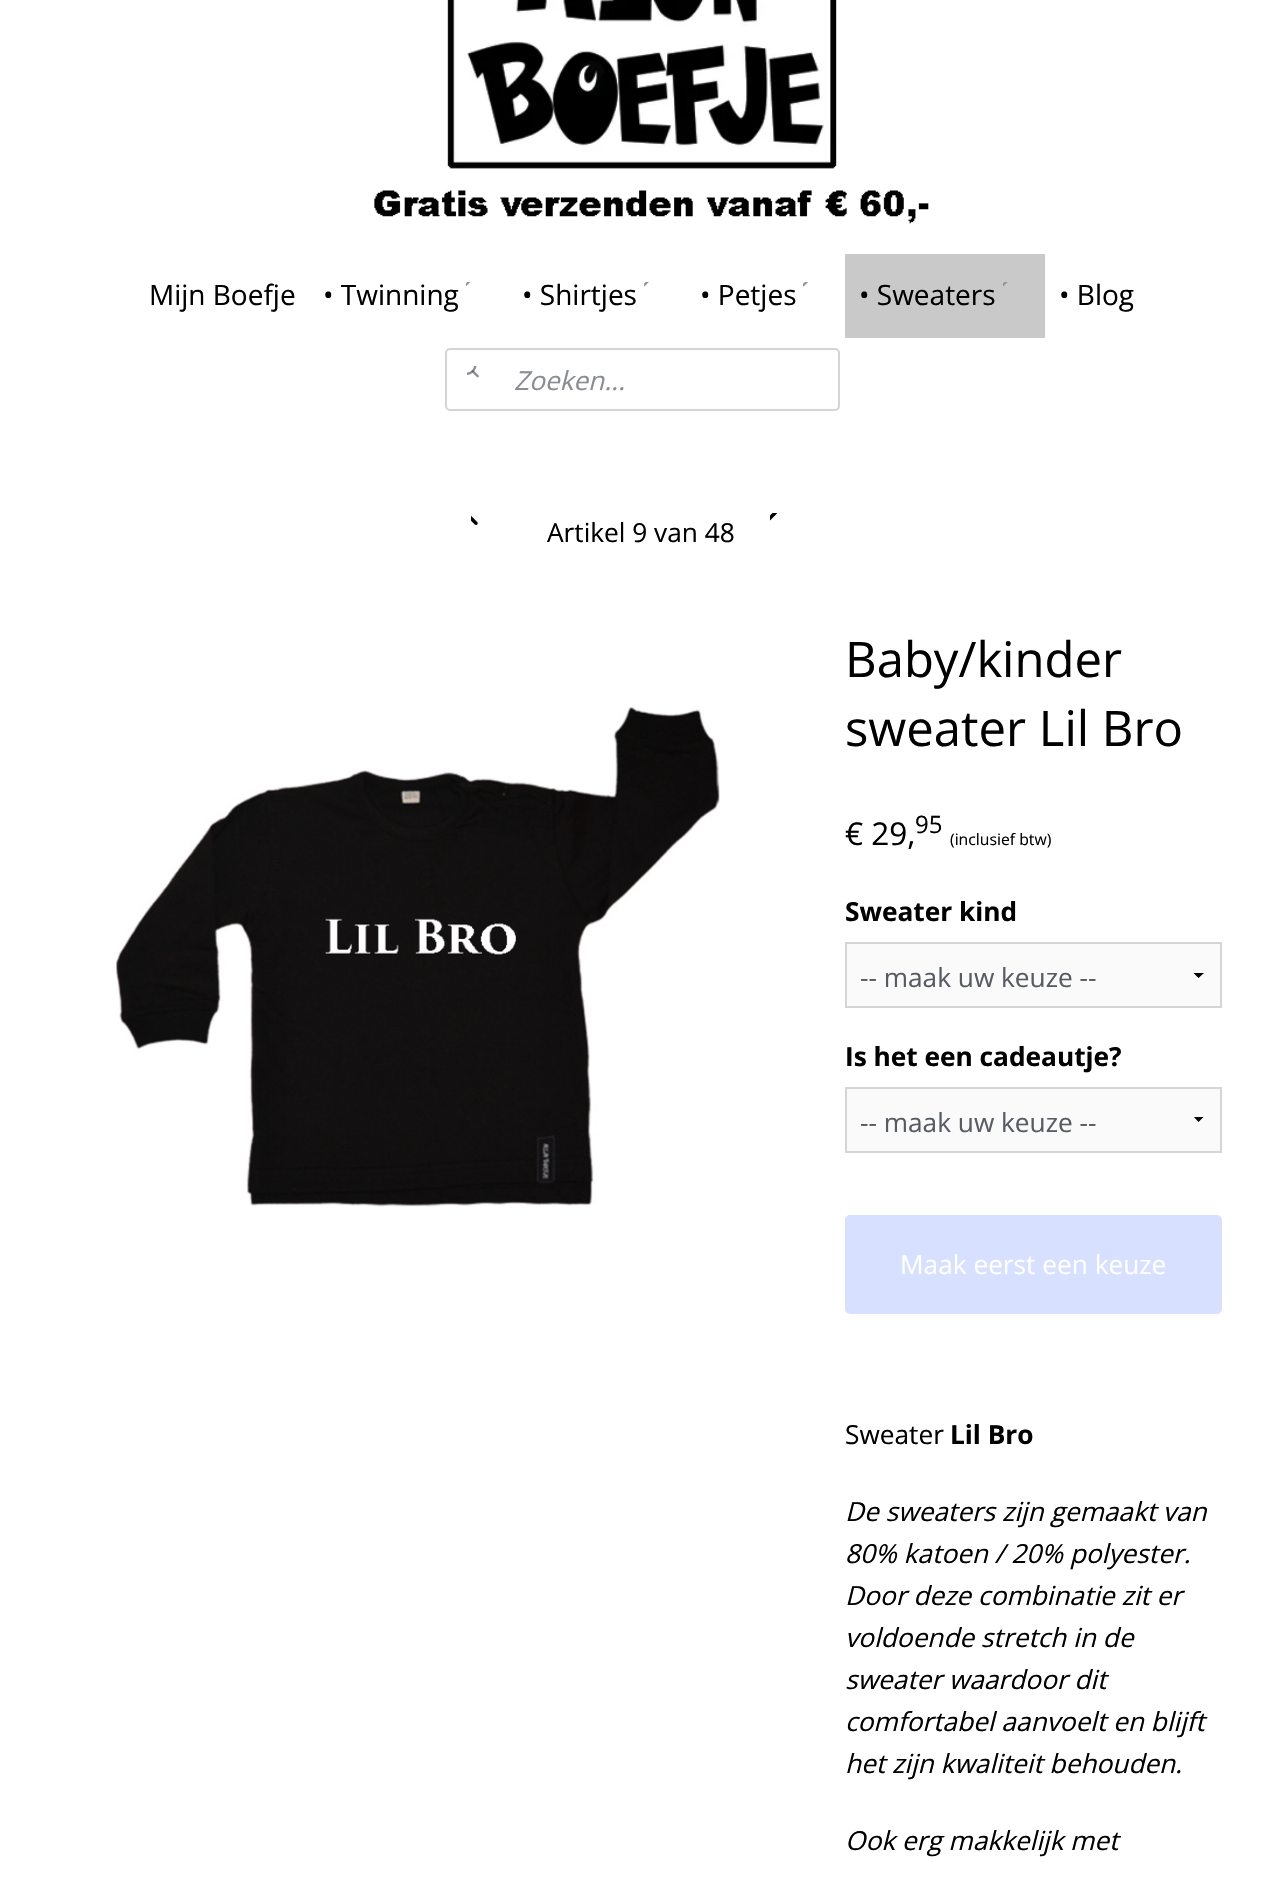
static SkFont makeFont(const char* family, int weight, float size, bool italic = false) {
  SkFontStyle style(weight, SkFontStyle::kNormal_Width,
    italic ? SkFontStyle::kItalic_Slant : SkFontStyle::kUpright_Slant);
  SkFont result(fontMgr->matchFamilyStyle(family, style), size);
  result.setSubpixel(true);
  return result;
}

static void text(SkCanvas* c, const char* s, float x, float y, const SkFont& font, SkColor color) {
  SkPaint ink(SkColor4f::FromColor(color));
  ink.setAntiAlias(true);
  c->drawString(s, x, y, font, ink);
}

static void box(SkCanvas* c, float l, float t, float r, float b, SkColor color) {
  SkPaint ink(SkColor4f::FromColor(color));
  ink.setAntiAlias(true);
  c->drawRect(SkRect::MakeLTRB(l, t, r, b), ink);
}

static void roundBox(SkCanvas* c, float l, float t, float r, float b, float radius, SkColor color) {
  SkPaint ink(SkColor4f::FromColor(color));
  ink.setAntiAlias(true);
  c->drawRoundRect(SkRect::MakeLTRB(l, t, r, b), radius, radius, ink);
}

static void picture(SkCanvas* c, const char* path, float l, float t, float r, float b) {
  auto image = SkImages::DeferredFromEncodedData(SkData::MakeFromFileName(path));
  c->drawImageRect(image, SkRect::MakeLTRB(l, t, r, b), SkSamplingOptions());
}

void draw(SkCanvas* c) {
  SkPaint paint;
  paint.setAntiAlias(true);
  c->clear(0xffffffff);
  picture(c, "img_01.png", 374, 0, 929, 224);
  SkFont face1 = makeFont("Open Sans", 400, 28);
  text(c, "Mijn Boefje", 149, 305, face1, 0xff000000);
  text(c, "• Twinning", 323, 305, face1, 0xff000000);
  picture(c, "img_02.png", 466, 282, 471, 287);
  text(c, "• Shirtjes", 522, 305, face1, 0xff000000);
  picture(c, "img_03.png", 644, 282, 649, 287);
  text(c, "• Petjes", 700, 305, face1, 0xff000000);
  picture(c, "img_04.png", 803, 282, 808, 287);
  box(c, 845, 254, 1045, 338, 0xffc9c9c9);
  text(c, "• Sweaters", 859, 305, face1, 0xff000000);
  picture(c, "img_05.png", 1003, 282, 1008, 287);
  text(c, "• Blog", 1059, 305, face1, 0xff000000);
  paint.setStyle(SkPaint::kStroke_Style);
  paint.setStrokeWidth(2);
  paint.setColor(0xffd3d5d9);
  c->drawRoundRect(SkRect::MakeLTRB(446, 349, 839, 410), 4, 4, paint);
  picture(c, "img_06.png", 467, 366, 479, 378);
  SkFont face2 = makeFont("Open Sans", 400, 26.25f, true);
  text(c, "Zoeken...", 514, 390, face2, 0xff898c91);
  picture(c, "img_07.png", 471, 515, 478, 525);
  picture(c, "img_08.png", 770, 513, 777, 521);
  SkFont face3 = makeFont("Open Sans", 400, 26.25f);
  text(c, "Artikel 9 van 48", 547, 542, face3, 0xff000000);
  picture(c, "img_09.png", 116, 707, 720, 1207);
  SkFont face4 = makeFont("Open Sans", 400, 49);
  text(c, "Baby/kinder", 845, 677, face4, 0xff000000);
  text(c, "sweater Lil Bro", 845, 746, face4, 0xff000000);
  SkFont face5 = makeFont("Open Sans", 400, 31.5f);
  text(c, "€ 29,", 845, 845, face5, 0xff000000);
  SkFont face6 = makeFont("Open Sans", 400, 24);
  text(c, "95", 915, 833, face6, 0xff000000);
  SkFont face7 = makeFont("Open Sans", 400, 15.75f);
  text(c, "(inclusief btw)", 950, 845, face7, 0xff000000);
  SkFont face8 = makeFont("Open Sans", 700, 26.25f);
  text(c, "Sweater kind", 845, 921, face8, 0xff000000);
  box(c, 847, 944, 1220, 1006, 0xfffafafa);
  paint.setStyle(SkPaint::kFill_Style);
  paint.setColor(0xff000000);
  c->drawPath(SkPathBuilder().moveTo(1204, 973).lineTo(1198.5f, 978).lineTo(1193.5f, 973).close().detach(), paint);
  paint.setStyle(SkPaint::kStroke_Style);
  paint.setColor(0xffd3d5d9);
  c->drawRect(SkRect::MakeLTRB(846, 943, 1221, 1007), paint);
  text(c, "-- maak uw keuze --", 860, 987, face3, 0xff575b62);
  text(c, "Is het een cadeautje?", 845, 1066, face8, 0xff000000);
  box(c, 847, 1089, 1220, 1151, 0xfffafafa);
  c->save();
  c->clipRect(SkRect::MakeLTRB(1178, 1117, 1220, 1122));
  paint.setStyle(SkPaint::kFill_Style);
  paint.setColor(0xff000000);
  c->drawPath(SkPathBuilder().moveTo(1204, 1116.5f).lineTo(1198.5f, 1122).lineTo(1193.5f, 1116.5f).close().detach(), paint);
  c->restore();
  paint.setStyle(SkPaint::kStroke_Style);
  paint.setColor(0xffd3d5d9);
  c->drawRect(SkRect::MakeLTRB(846, 1088, 1221, 1152), paint);
  text(c, "-- maak uw keuze --", 860, 1132, face3, 0xff575b62);
  roundBox(c, 845, 1215, 1222, 1314, 5, 0xffd8e0ff);
  text(c, "Maak eerst een keuze", 900, 1274, face3, 0xffffffff);
  text(c, "Sweater", 845, 1444, face3, 0xff000000);
  text(c, "Lil Bro", 950, 1444, face8, 0xff000000);
  text(c, "De sweaters zijn gemaakt van", 845, 1521, face2, 0xff000000);
  text(c, "80% katoen / 20% polyester.", 845, 1563, face2, 0xff000000);
  text(c, "Door deze combinatie zit er", 845, 1605, face2, 0xff000000);
  text(c, "voldoende stretch in de", 845, 1647, face2, 0xff000000);
  text(c, "sweater waardoor dit", 845, 1689, face2, 0xff000000);
  text(c, "comfortabel aanvoelt en blijft", 845, 1731, face2, 0xff000000);
  text(c, "het zijn kwaliteit behouden.", 845, 1773, face2, 0xff000000);
  text(c, "Ook erg makkelijk met", 845, 1850, face2, 0xff000000);
}
